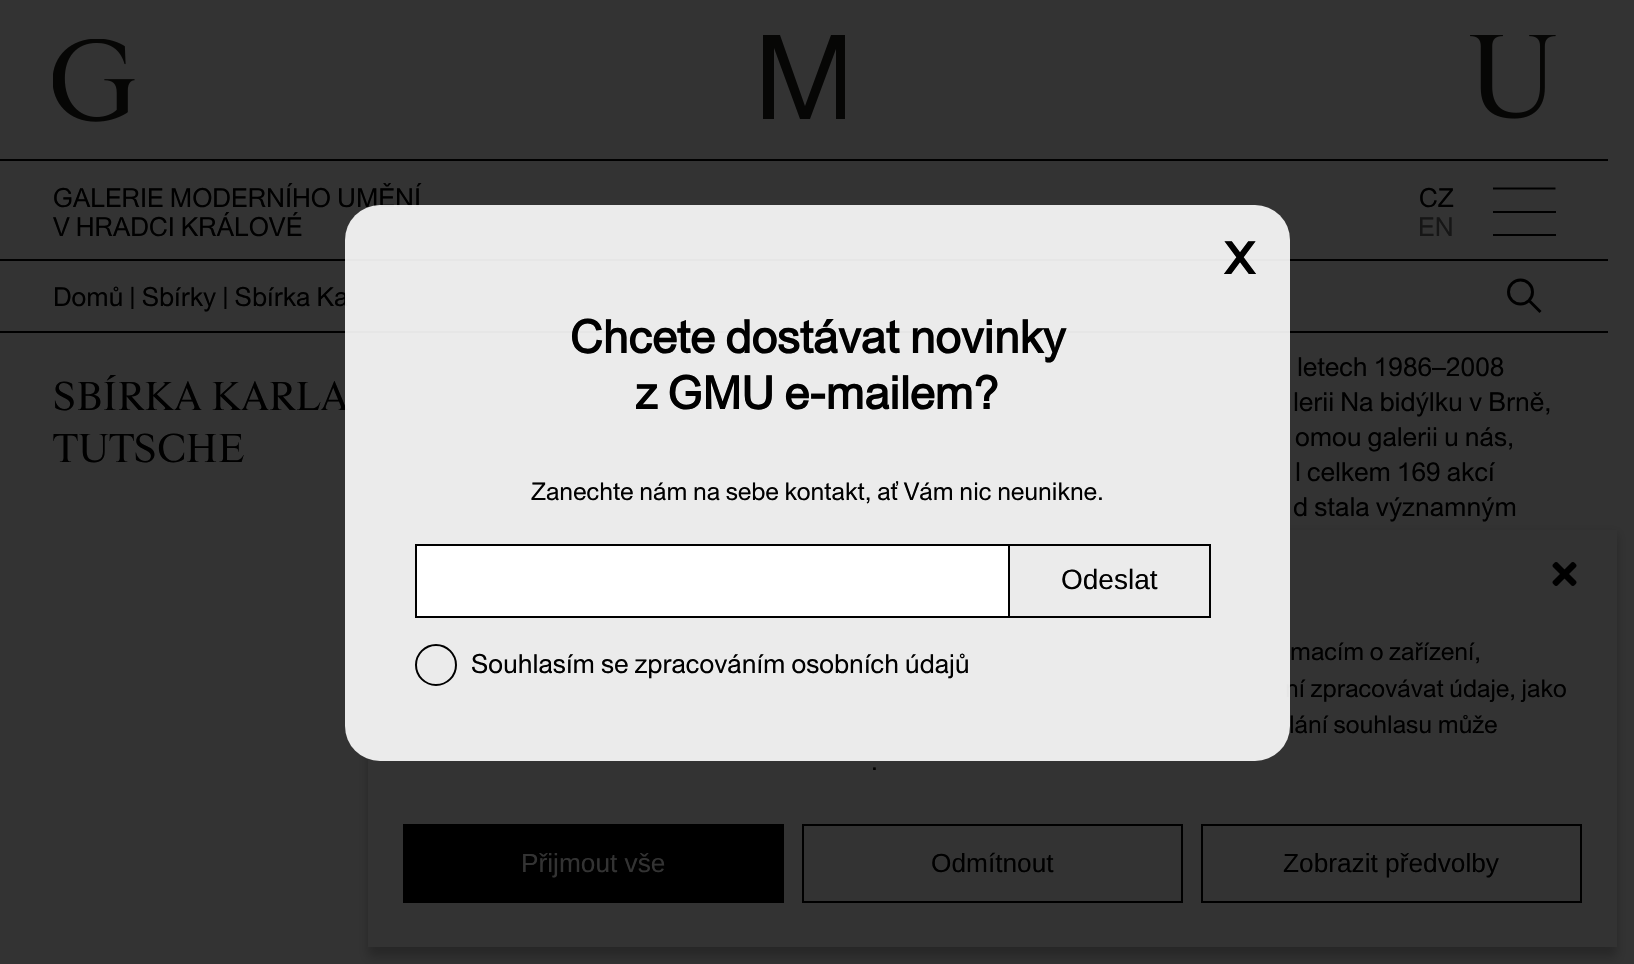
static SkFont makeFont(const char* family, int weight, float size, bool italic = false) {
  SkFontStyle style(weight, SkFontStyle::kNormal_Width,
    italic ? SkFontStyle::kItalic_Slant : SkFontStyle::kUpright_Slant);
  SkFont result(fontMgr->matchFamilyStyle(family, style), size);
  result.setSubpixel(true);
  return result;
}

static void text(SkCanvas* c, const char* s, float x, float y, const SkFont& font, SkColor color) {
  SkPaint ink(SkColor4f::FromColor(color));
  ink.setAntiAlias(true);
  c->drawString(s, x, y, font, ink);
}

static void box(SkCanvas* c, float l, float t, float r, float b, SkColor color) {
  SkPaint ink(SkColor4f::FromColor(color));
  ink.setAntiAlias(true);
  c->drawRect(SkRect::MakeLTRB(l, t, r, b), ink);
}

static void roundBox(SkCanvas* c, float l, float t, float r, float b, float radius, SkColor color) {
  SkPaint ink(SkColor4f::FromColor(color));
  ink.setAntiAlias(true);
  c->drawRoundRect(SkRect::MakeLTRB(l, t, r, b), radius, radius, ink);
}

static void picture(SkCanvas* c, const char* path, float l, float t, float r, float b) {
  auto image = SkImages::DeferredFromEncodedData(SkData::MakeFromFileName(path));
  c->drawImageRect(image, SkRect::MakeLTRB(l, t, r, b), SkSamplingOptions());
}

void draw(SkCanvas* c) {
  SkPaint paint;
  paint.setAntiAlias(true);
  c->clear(0xff333333);
  box(c, 0, 159, 1608, 161, 0xff000000);
  picture(c, "img_01.png", 53, 39, 135, 122);
  c->save();
  c->clipRect(SkRect::MakeLTRB(763, 35, 845, 119));
  paint.setColor(0xff060605);
  c->drawPath(SkPathBuilder().moveTo(774, 48).lineTo(774, 119).lineTo(763, 119).lineTo(763, 35).lineTo(780, 35).lineTo(805, 106).lineTo(831, 35).lineTo(847, 35).lineTo(847, 119).lineTo(836, 119).lineTo(836, 49).lineTo(810, 119).lineTo(800, 119).close().detach(), paint);
  c->restore();
  picture(c, "img_02.png", 1470, 35, 1556, 119);
  box(c, 0, 331, 1608, 333, 0xff000000);
  box(c, 0, 259, 1608, 261, 0xff000000);
  SkFont face1 = makeFont("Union", 400, 26.25f);
  text(c, "GALERIE MODERNÍHO UMĚNÍ", 53, 207, face1, 0xff000000);
  text(c, "V HRADCI KRÁLOVÉ", 53, 236, face1, 0xff000000);
  text(c, "CZ", 1419, 207, face1, 0xff000000);
  text(c, "EN", 1418, 236, face1, 0xff161616);
  paint.setStyle(SkPaint::kStroke_Style);
  paint.setStrokeWidth(2.1f);
  paint.setColor(0xff000000);
  c->drawPath(SkPathBuilder().moveTo(1493, 188.5f).lineTo(1555.5f, 188.5f).detach(), paint);
  box(c, 1493, 211, 1556, 213, 0xff000000);
  box(c, 1493, 234, 1556, 236, 0xff000000);
  text(c, "Domů | Sbírky | Sbírka Ka", 53, 306, face1, 0xff000000);
  paint.setStrokeWidth(3);
  c->drawCircle(1520.5f, 292, 12, paint);
  c->drawPath(SkPathBuilder().moveTo(1529.5f, 301).lineTo(1540.5f, 312).detach(), paint);
  SkFont face2 = makeFont("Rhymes", 400, 38.5f);
  text(c, "SBÍRKA KARLA", 53, 410, face2, 0xff000000);
  paint.setStyle(SkPaint::kFill_Style);
  paint.setColor(0x3b000000);
  paint.setMaskFilter(SkMaskFilter::MakeBlur(kNormal_SkBlurStyle, 5));
  c->drawRect(SkRect::MakeLTRB(368, 534, 1617, 957), paint);
  paint.setMaskFilter(nullptr);
  box(c, 368, 530, 1617, 947, 0xff333333);
  SkFont face3 = makeFont("Union", 400, 24.5f);
  text(c, "ní zpracovávat údaje, jako", 1285, 697, face3, 0xff000000);
  roundBox(c, 345, 205, 1290, 761, 35, 0xe6ffffff);
  SkFont face4 = makeFont("Aldrich", 400, 63);
  text(c, "x", 1222, 274, face4, 0xff000000);
  SkFont face5 = makeFont("Union", 700, 45.5f);
  text(c, "Chcete dostávat novinky", 570, 353, face5, 0xff000000);
  text(c, "z GMU e-mailem?", 635, 409, face5, 0xff000000);
  text(c, "Zanechte nám na sebe kontakt, ať Vám nic neunikne.", 531, 500, face3, 0xff000000);
  paint.setColor(0xffffffff);
  c->drawRect(SkRect::MakeLTRB(416, 545, 1009, 617), paint);
  paint.setStyle(SkPaint::kStroke_Style);
  paint.setStrokeWidth(2);
  paint.setColor(0xff000000);
  c->drawRect(SkRect::MakeLTRB(416, 545, 1009, 617), paint);
  box(c, 1010, 544, 1211, 546, 0xff000000);
  box(c, 1209, 544, 1211, 618, 0xff000000);
  box(c, 1010, 616, 1211, 618, 0xff000000);
  SkFont face6 = makeFont("Liberation Sans", 400, 28);
  text(c, "Odeslat", 1061, 589, face6, 0xff000000);
  c->drawCircle(436, 665, 20, paint);
  text(c, "Souhlasím se zpracováním osobních údajů", 471, 673, face1, 0xff000000);
  text(c, "TUTSCHE", 53, 462, face2, 0xff000000);
  text(c, "letech 1986–2008", 1297, 376, face1, 0xff000000);
  text(c, "lerii Na bidýlku v Brně,", 1293, 411, face1, 0xff000000);
  text(c, "omou galerii u nás,", 1295, 446, face1, 0xff000000);
  text(c, "l celkem 169 akcí", 1295, 481, face1, 0xff000000);
  text(c, "d stala významným", 1293, 516, face1, 0xff000000);
  picture(c, "img_03.png", 1552, 562, 1577, 586);
  text(c, "macím o zařízení,", 1290, 660, face3, 0xff000000);
  text(c, "lání souhlasu může", 1289, 733, face3, 0xff000000);
  text(c, ".", 871, 770, face3, 0xff000000);
  box(c, 403, 824, 784, 903, 0xff000000);
  SkFont face7 = makeFont("Liberation Sans", 400, 26.25f);
  text(c, "Přijmout vše", 521, 872, face7, 0xff333333);
  c->drawRect(SkRect::MakeLTRB(803, 825, 1182, 902), paint);
  text(c, "Odmítnout", 931, 872, face7, 0xff000000);
  c->drawRect(SkRect::MakeLTRB(1202, 825, 1581, 902), paint);
  text(c, "Zobrazit předvolby", 1283, 872, face7, 0xff000000);
}
